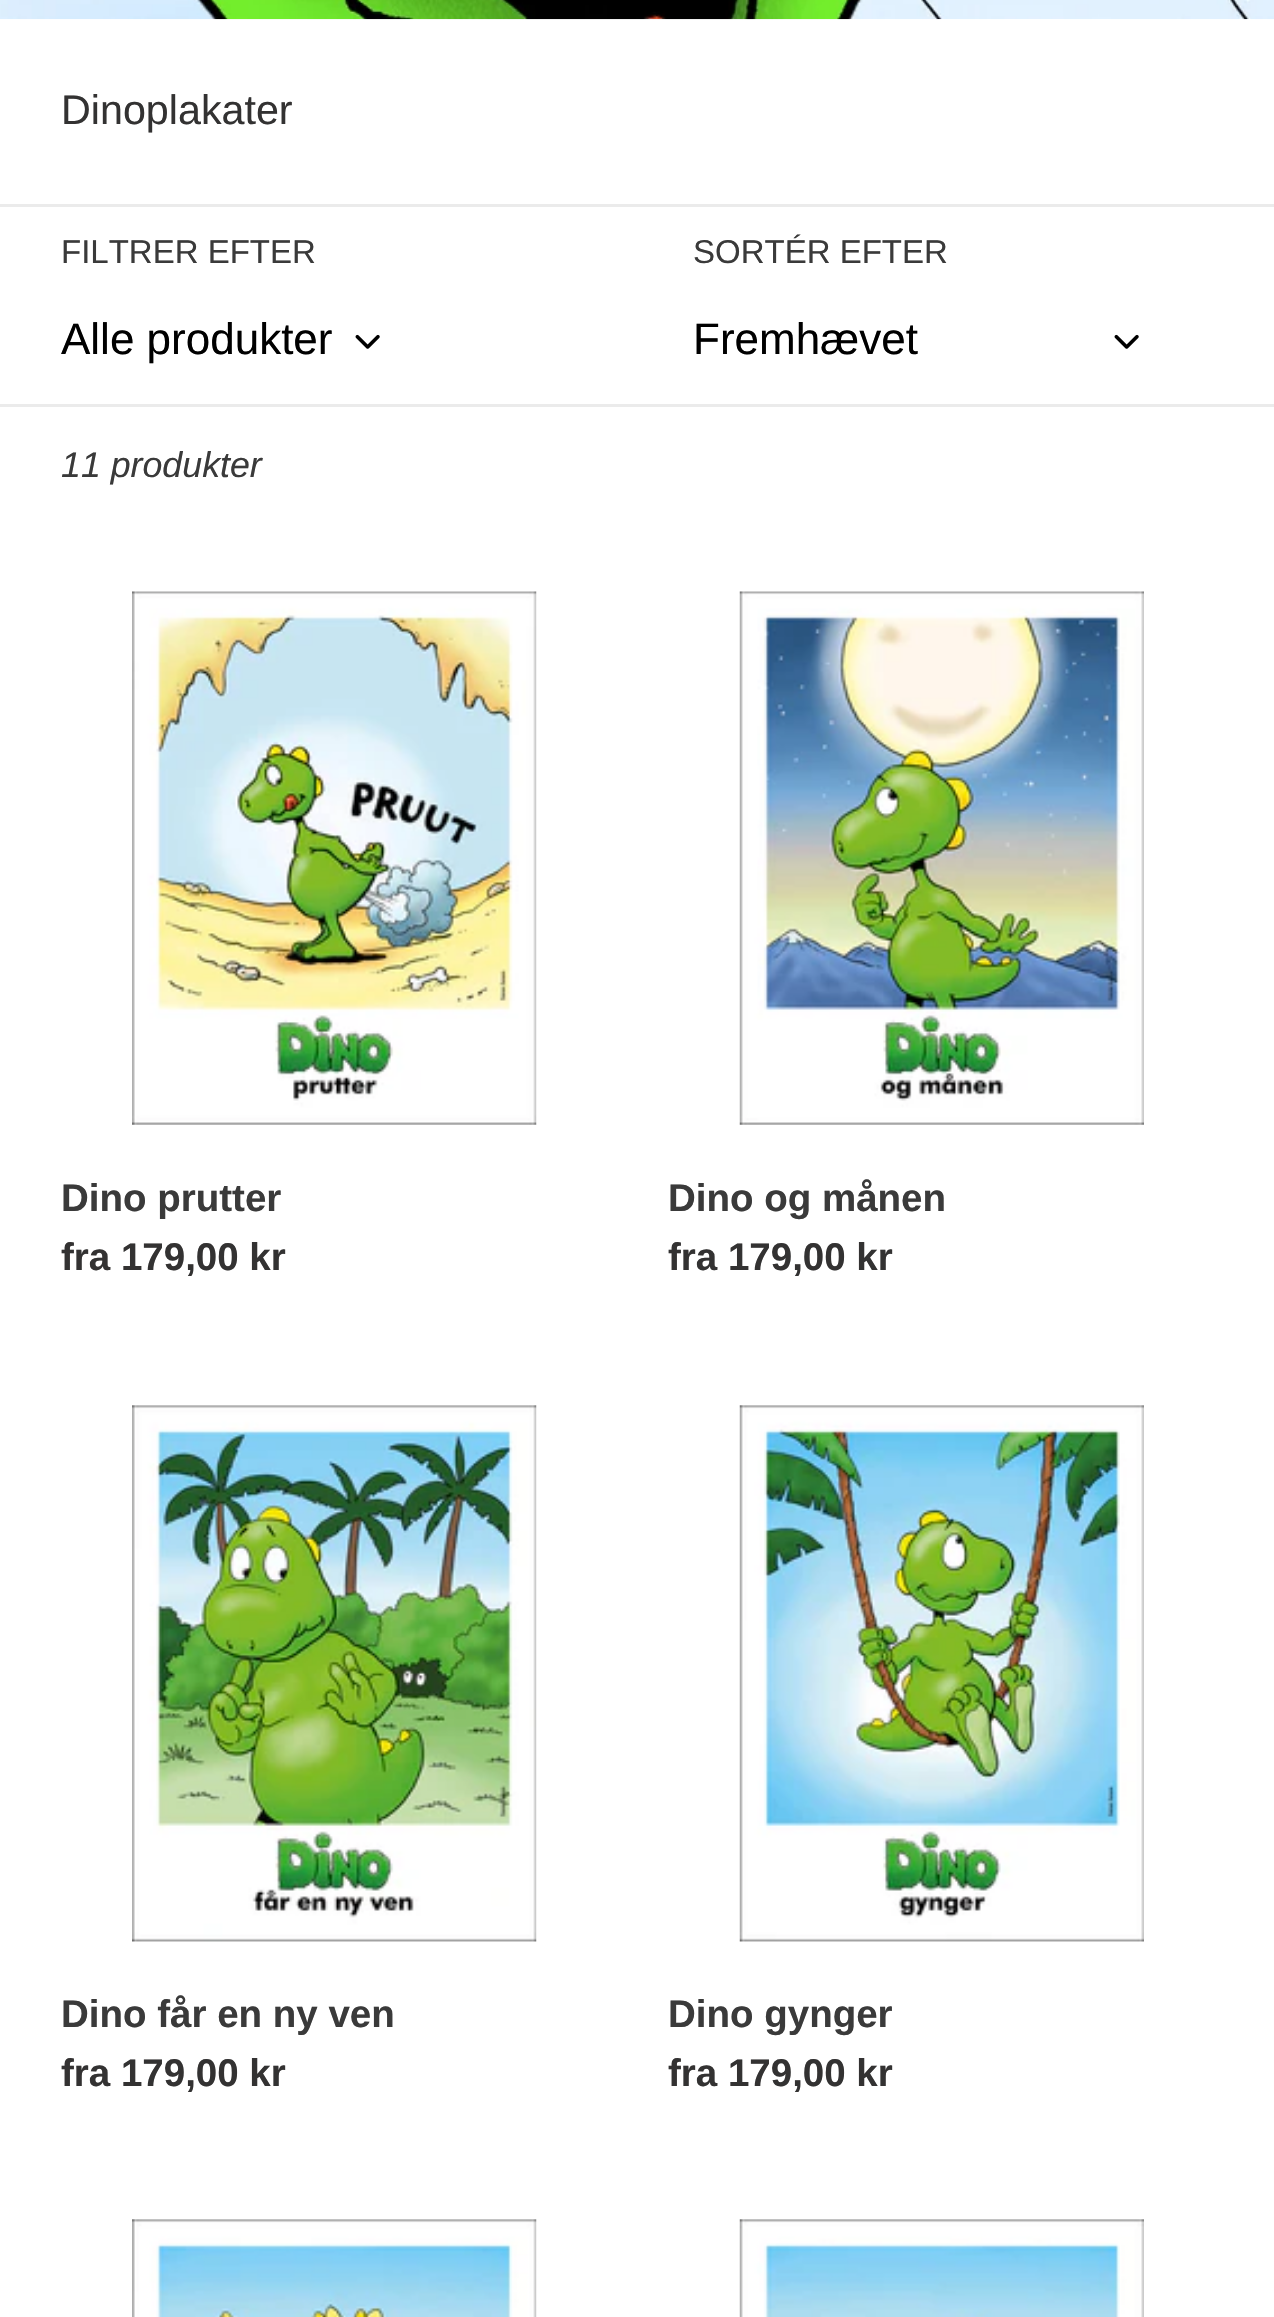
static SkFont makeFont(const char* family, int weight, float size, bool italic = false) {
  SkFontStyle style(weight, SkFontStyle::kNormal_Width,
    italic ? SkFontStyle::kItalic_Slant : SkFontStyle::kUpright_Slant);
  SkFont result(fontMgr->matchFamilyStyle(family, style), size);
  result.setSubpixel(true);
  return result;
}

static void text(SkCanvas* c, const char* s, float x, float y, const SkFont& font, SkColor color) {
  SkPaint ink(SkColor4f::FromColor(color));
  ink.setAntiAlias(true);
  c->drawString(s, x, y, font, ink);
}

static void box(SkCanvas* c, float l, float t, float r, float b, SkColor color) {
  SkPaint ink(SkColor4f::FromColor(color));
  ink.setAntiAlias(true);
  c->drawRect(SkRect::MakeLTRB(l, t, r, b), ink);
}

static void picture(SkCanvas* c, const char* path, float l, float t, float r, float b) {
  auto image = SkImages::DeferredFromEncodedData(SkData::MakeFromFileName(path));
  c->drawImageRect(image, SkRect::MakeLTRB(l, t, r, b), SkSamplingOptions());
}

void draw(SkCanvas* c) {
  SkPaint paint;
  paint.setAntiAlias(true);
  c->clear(0xffffffff);
  picture(c, "img_01.png", 0, 0, 1274, 20);
  SkFont face1 = makeFont("Liberation Sans", 400, 41.25f);
  text(c, "Dinoplakater", 61, 124, face1, 0xff333232);
  box(c, 0, 204, 1274, 207, 0xffebebeb);
  SkFont face2 = makeFont("Liberation Sans", 400, 33);
  text(c, "FILTRER EFTER", 61, 263, face2, 0xff3a3a3a);
  SkFont face3 = makeFont("Liberation Sans", 400, 44);
  text(c, "Alle produkter", 61, 354, face3, 0xff000000);
  picture(c, "img_02.png", 355, 334, 380, 349);
  text(c, "SORTÉR EFTER", 693, 263, face2, 0xff3a3a3a);
  text(c, "Fremhævet", 693, 354, face3, 0xff000000);
  picture(c, "img_02.png", 1114, 334, 1139, 349);
  box(c, 0, 404, 1274, 407, 0xffebebeb);
  SkFont face4 = makeFont("Liberation Sans", 400, 35.75f, true);
  text(c, "11 produkter", 61, 477, face4, 0xff3a3a3a);
  picture(c, "img_03.png", 132, 591, 537, 1125);
  SkFont face5 = makeFont("Liberation Sans", 700, 38.5f);
  text(c, "Dino prutter", 61, 1211, face5, 0xff3a3a3a);
  text(c, "fra 179,00 kr", 61, 1270, face5, 0xff333232);
  picture(c, "img_04.png", 739, 591, 1144, 1125);
  text(c, "Dino og månen", 668, 1211, face5, 0xff3a3a3a);
  text(c, "fra 179,00 kr", 668, 1270, face5, 0xff333232);
  picture(c, "img_05.png", 132, 1405, 537, 1942);
  text(c, "Dino får en ny ven", 61, 2027, face5, 0xff3a3a3a);
  text(c, "fra 179,00 kr", 61, 2086, face5, 0xff333232);
  picture(c, "img_06.png", 739, 1405, 1144, 1942);
  text(c, "Dino gynger", 668, 2027, face5, 0xff3a3a3a);
  text(c, "fra 179,00 kr", 668, 2086, face5, 0xff333232);
  picture(c, "img_07.png", 132, 2219, 537, 2317);
  picture(c, "img_08.png", 739, 2219, 1144, 2317);
}
